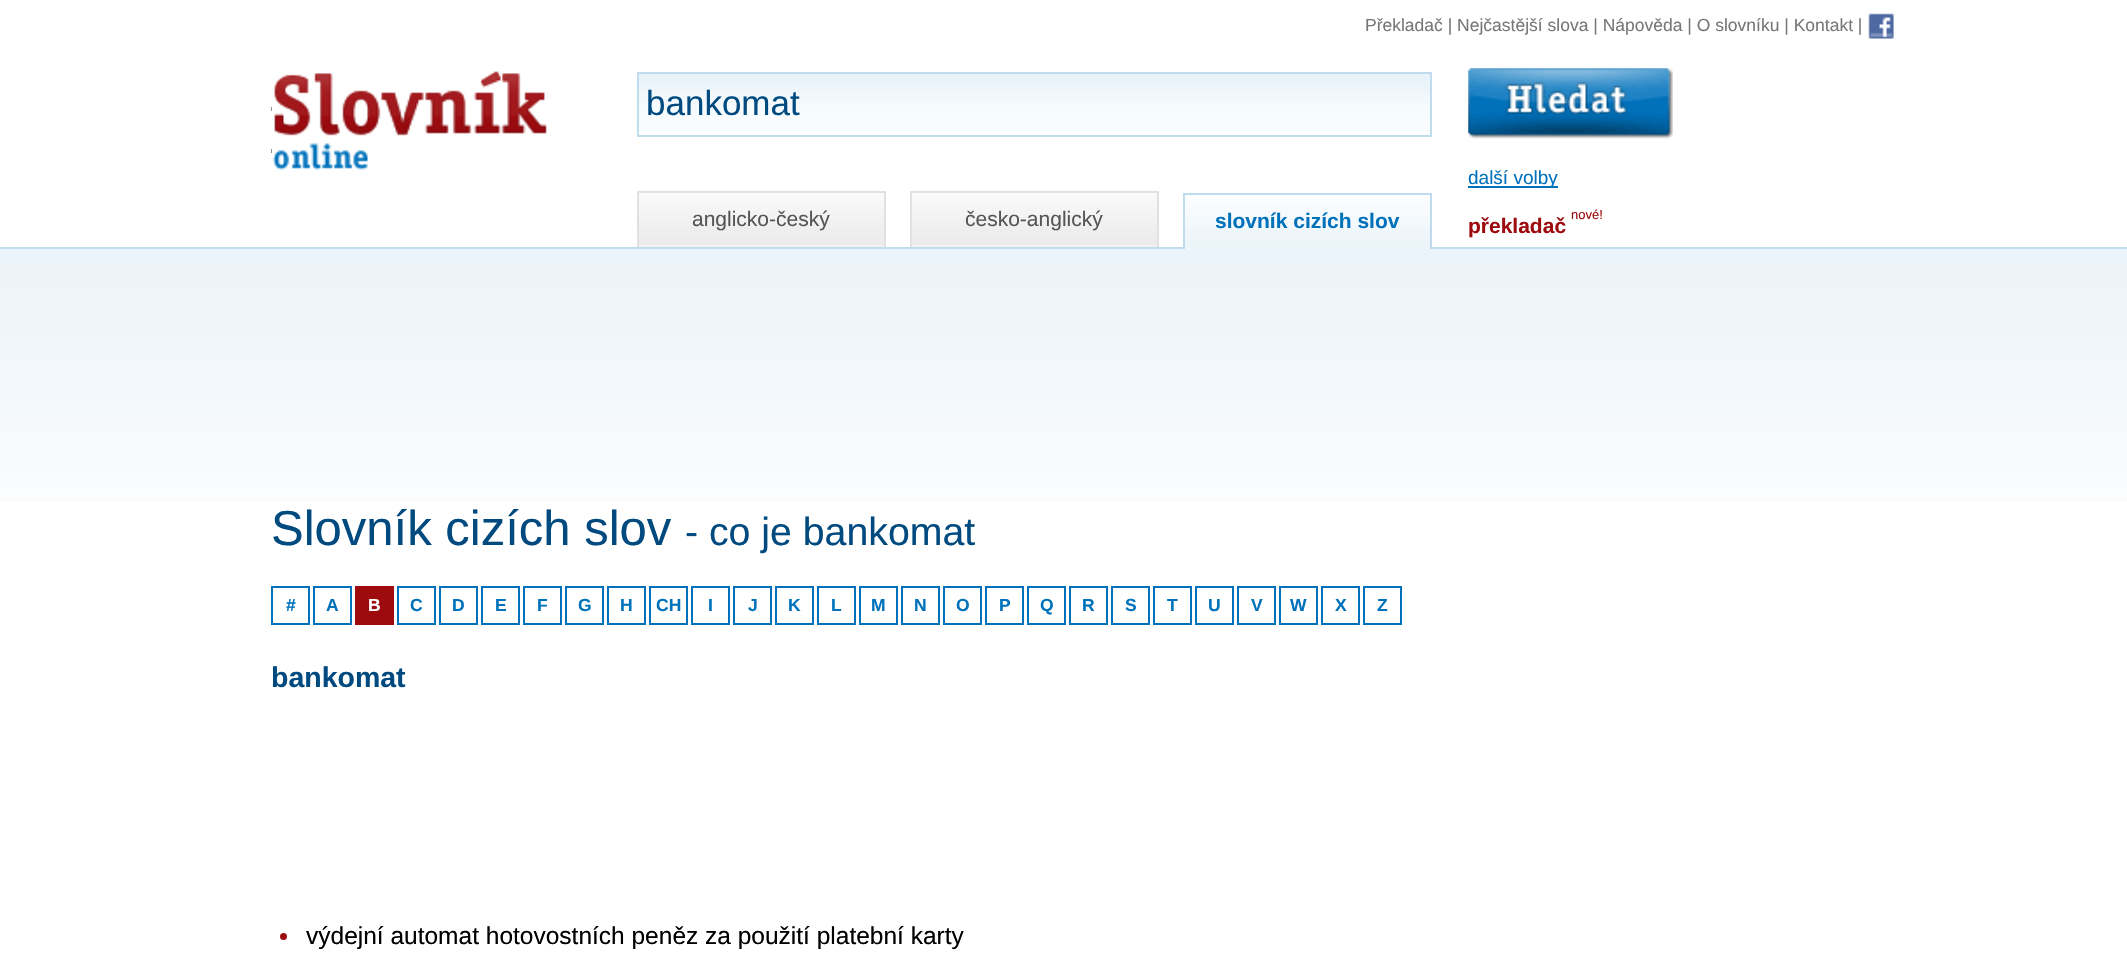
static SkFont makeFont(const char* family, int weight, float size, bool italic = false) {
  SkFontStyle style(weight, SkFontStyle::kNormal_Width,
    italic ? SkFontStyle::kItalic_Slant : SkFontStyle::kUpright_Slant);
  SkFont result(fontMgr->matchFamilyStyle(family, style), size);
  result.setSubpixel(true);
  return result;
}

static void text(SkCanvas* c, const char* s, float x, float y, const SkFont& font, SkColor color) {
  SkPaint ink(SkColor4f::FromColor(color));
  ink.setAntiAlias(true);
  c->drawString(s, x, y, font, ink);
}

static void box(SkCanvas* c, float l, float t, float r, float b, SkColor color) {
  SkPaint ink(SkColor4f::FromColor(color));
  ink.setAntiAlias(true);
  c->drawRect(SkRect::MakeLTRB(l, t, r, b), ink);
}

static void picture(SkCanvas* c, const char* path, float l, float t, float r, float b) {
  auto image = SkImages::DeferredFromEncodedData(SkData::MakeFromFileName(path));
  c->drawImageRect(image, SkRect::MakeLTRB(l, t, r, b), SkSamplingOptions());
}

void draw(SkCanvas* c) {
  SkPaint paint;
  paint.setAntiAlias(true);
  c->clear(0xffffffff);
  SkFont face1 = makeFont("Liberation Sans", 400, 17.5f);
  text(c, "Překladač | Nejčastější slova | Nápověda | O slovníku | Kontakt |", 1365, 31, face1, 0xff777777);
  picture(c, "img_01.png", 1868, 13, 1894, 39);
  box(c, 271, 107, 272, 111, 0xff000000);
  box(c, 271, 149, 272, 153, 0xff000000);
  picture(c, "img_02.png", 271, 71, 547, 171);
  picture(c, "img_03.png", 639, 74, 1430, 131);
  paint.setStyle(SkPaint::kStroke_Style);
  paint.setStrokeWidth(2);
  paint.setColor(0xffbfdcee);
  c->drawRect(SkRect::MakeLTRB(638, 73, 1431, 136), paint);
  SkFont face2 = makeFont("Liberation Sans", 400, 35);
  text(c, "bankomat", 646, 115, face2, 0xff004a80);
  picture(c, "img_04.png", 1468, 68, 1673, 139);
  box(c, 1468, 186, 1558, 188, 0xff0072bc);
  SkFont face3 = makeFont("Liberation Sans", 400, 19);
  text(c, "další volby", 1468, 184, face3, 0xff0072bc);
  box(c, 639, 245, 884, 247, 0xfff1f1f1);
  picture(c, "img_05.png", 639, 193, 884, 245);
  box(c, 637, 191, 886, 193, 0xffe1e1e1);
  box(c, 884, 191, 886, 247, 0xffe1e1e1);
  box(c, 637, 191, 639, 247, 0xffe1e1e1);
  SkFont face4 = makeFont("Liberation Sans", 400, 21);
  text(c, "anglicko-český", 692, 226, face4, 0xff555555);
  box(c, 912, 245, 1157, 247, 0xfff1f1f1);
  picture(c, "img_05.png", 912, 193, 1157, 245);
  box(c, 910, 191, 1159, 193, 0xffe1e1e1);
  box(c, 1157, 191, 1159, 247, 0xffe1e1e1);
  box(c, 910, 191, 912, 247, 0xffe1e1e1);
  text(c, "česko-anglický", 965, 226, face4, 0xff555555);
  box(c, 0, 247, 2127, 249, 0xffbfdcee);
  box(c, 1185, 248, 1430, 249, 0xfff3f9fc);
  picture(c, "img_06.png", 1185, 195, 1430, 249);
  box(c, 1183, 193, 1432, 195, 0xffbfdcee);
  box(c, 1430, 193, 1432, 249, 0xffbfdcee);
  box(c, 1183, 193, 1185, 249, 0xffbfdcee);
  SkFont face5 = makeFont("Liberation Sans", 700, 21);
  text(c, "slovník cizích slov", 1215, 228, face5, 0xff0072bc);
  text(c, "překladač", 1468, 233, face5, 0xff9e0b0f);
  SkFont face6 = makeFont("Liberation Sans", 400, 13);
  text(c, "nové!", 1571, 219, face6, 0xff9e0b0f);
  picture(c, "img_07.png", 0, 249, 2127, 502);
  SkFont face7 = makeFont("Liberation Sans", 400, 49);
  text(c, "Slovník cizích slov", 271, 545, face7, 0xff004a80);
  SkFont face8 = makeFont("Liberation Sans", 400, 39.25f);
  text(c, "- co je bankomat", 685, 545, face8, 0xff004a80);
  paint.setColor(0xff0072bc);
  c->drawRect(SkRect::MakeLTRB(272, 587, 309, 624), paint);
  SkFont face9 = makeFont("Liberation Sans", 700, 17.5f);
  text(c, "#", 286, 611, face9, 0xff0072bc);
  c->drawRect(SkRect::MakeLTRB(314, 587, 351, 624), paint);
  text(c, "A", 326, 611, face9, 0xff0072bc);
  box(c, 355, 586, 394, 625, 0xff9e0b0f);
  text(c, "B", 368, 611, face9, 0xffffffff);
  c->drawRect(SkRect::MakeLTRB(398, 587, 435, 624), paint);
  text(c, "C", 410, 611, face9, 0xff0072bc);
  c->drawRect(SkRect::MakeLTRB(440, 587, 477, 624), paint);
  text(c, "D", 452, 611, face9, 0xff0072bc);
  c->drawRect(SkRect::MakeLTRB(482, 587, 519, 624), paint);
  text(c, "E", 495, 611, face9, 0xff0072bc);
  c->drawRect(SkRect::MakeLTRB(524, 587, 561, 624), paint);
  text(c, "F", 537, 611, face9, 0xff0072bc);
  c->drawRect(SkRect::MakeLTRB(566, 587, 603, 624), paint);
  text(c, "G", 578, 611, face9, 0xff0072bc);
  c->drawRect(SkRect::MakeLTRB(608, 587, 645, 624), paint);
  text(c, "H", 620, 611, face9, 0xff0072bc);
  c->drawRect(SkRect::MakeLTRB(650, 587, 687, 624), paint);
  text(c, "CH", 656, 611, face9, 0xff0072bc);
  c->drawRect(SkRect::MakeLTRB(692, 587, 729, 624), paint);
  text(c, "I", 708, 611, face9, 0xff0072bc);
  c->drawRect(SkRect::MakeLTRB(734, 587, 771, 624), paint);
  text(c, "J", 748, 611, face9, 0xff0072bc);
  c->drawRect(SkRect::MakeLTRB(776, 587, 813, 624), paint);
  text(c, "K", 788, 611, face9, 0xff0072bc);
  c->drawRect(SkRect::MakeLTRB(818, 587, 855, 624), paint);
  text(c, "L", 831, 611, face9, 0xff0072bc);
  c->drawRect(SkRect::MakeLTRB(860, 587, 897, 624), paint);
  text(c, "M", 871, 611, face9, 0xff0072bc);
  c->drawRect(SkRect::MakeLTRB(902, 587, 939, 624), paint);
  text(c, "N", 914, 611, face9, 0xff0072bc);
  c->drawRect(SkRect::MakeLTRB(944, 587, 981, 624), paint);
  text(c, "O", 956, 611, face9, 0xff0072bc);
  c->drawRect(SkRect::MakeLTRB(986, 587, 1023, 624), paint);
  text(c, "P", 999, 611, face9, 0xff0072bc);
  c->drawRect(SkRect::MakeLTRB(1028, 587, 1065, 624), paint);
  text(c, "Q", 1040, 611, face9, 0xff0072bc);
  c->drawRect(SkRect::MakeLTRB(1070, 587, 1107, 624), paint);
  text(c, "R", 1082, 611, face9, 0xff0072bc);
  c->drawRect(SkRect::MakeLTRB(1112, 587, 1149, 624), paint);
  text(c, "S", 1125, 611, face9, 0xff0072bc);
  c->drawRect(SkRect::MakeLTRB(1154, 587, 1191, 624), paint);
  text(c, "T", 1167, 611, face9, 0xff0072bc);
  c->drawRect(SkRect::MakeLTRB(1196, 587, 1233, 624), paint);
  text(c, "U", 1208, 611, face9, 0xff0072bc);
  c->drawRect(SkRect::MakeLTRB(1238, 587, 1275, 624), paint);
  text(c, "V", 1251, 611, face9, 0xff0072bc);
  c->drawRect(SkRect::MakeLTRB(1280, 587, 1317, 624), paint);
  text(c, "W", 1290, 611, face9, 0xff0072bc);
  c->drawRect(SkRect::MakeLTRB(1322, 587, 1359, 624), paint);
  text(c, "X", 1335, 611, face9, 0xff0072bc);
  c->drawRect(SkRect::MakeLTRB(1364, 587, 1401, 624), paint);
  text(c, "Z", 1377, 611, face9, 0xff0072bc);
  SkFont face10 = makeFont("Liberation Sans", 700, 28.5f);
  text(c, "bankomat", 271, 687, face10, 0xff004a80);
  paint.setStyle(SkPaint::kFill_Style);
  paint.setColor(0xff9e0b0f);
  c->drawCircle(283.5f, 936.5f, 3.5f, paint);
  SkFont face11 = makeFont("Liberation Sans", 400, 24.5f);
  text(c, "výdejní automat hotovostních peněz za použití platební karty", 306, 944, face11, 0xff000000);
}
